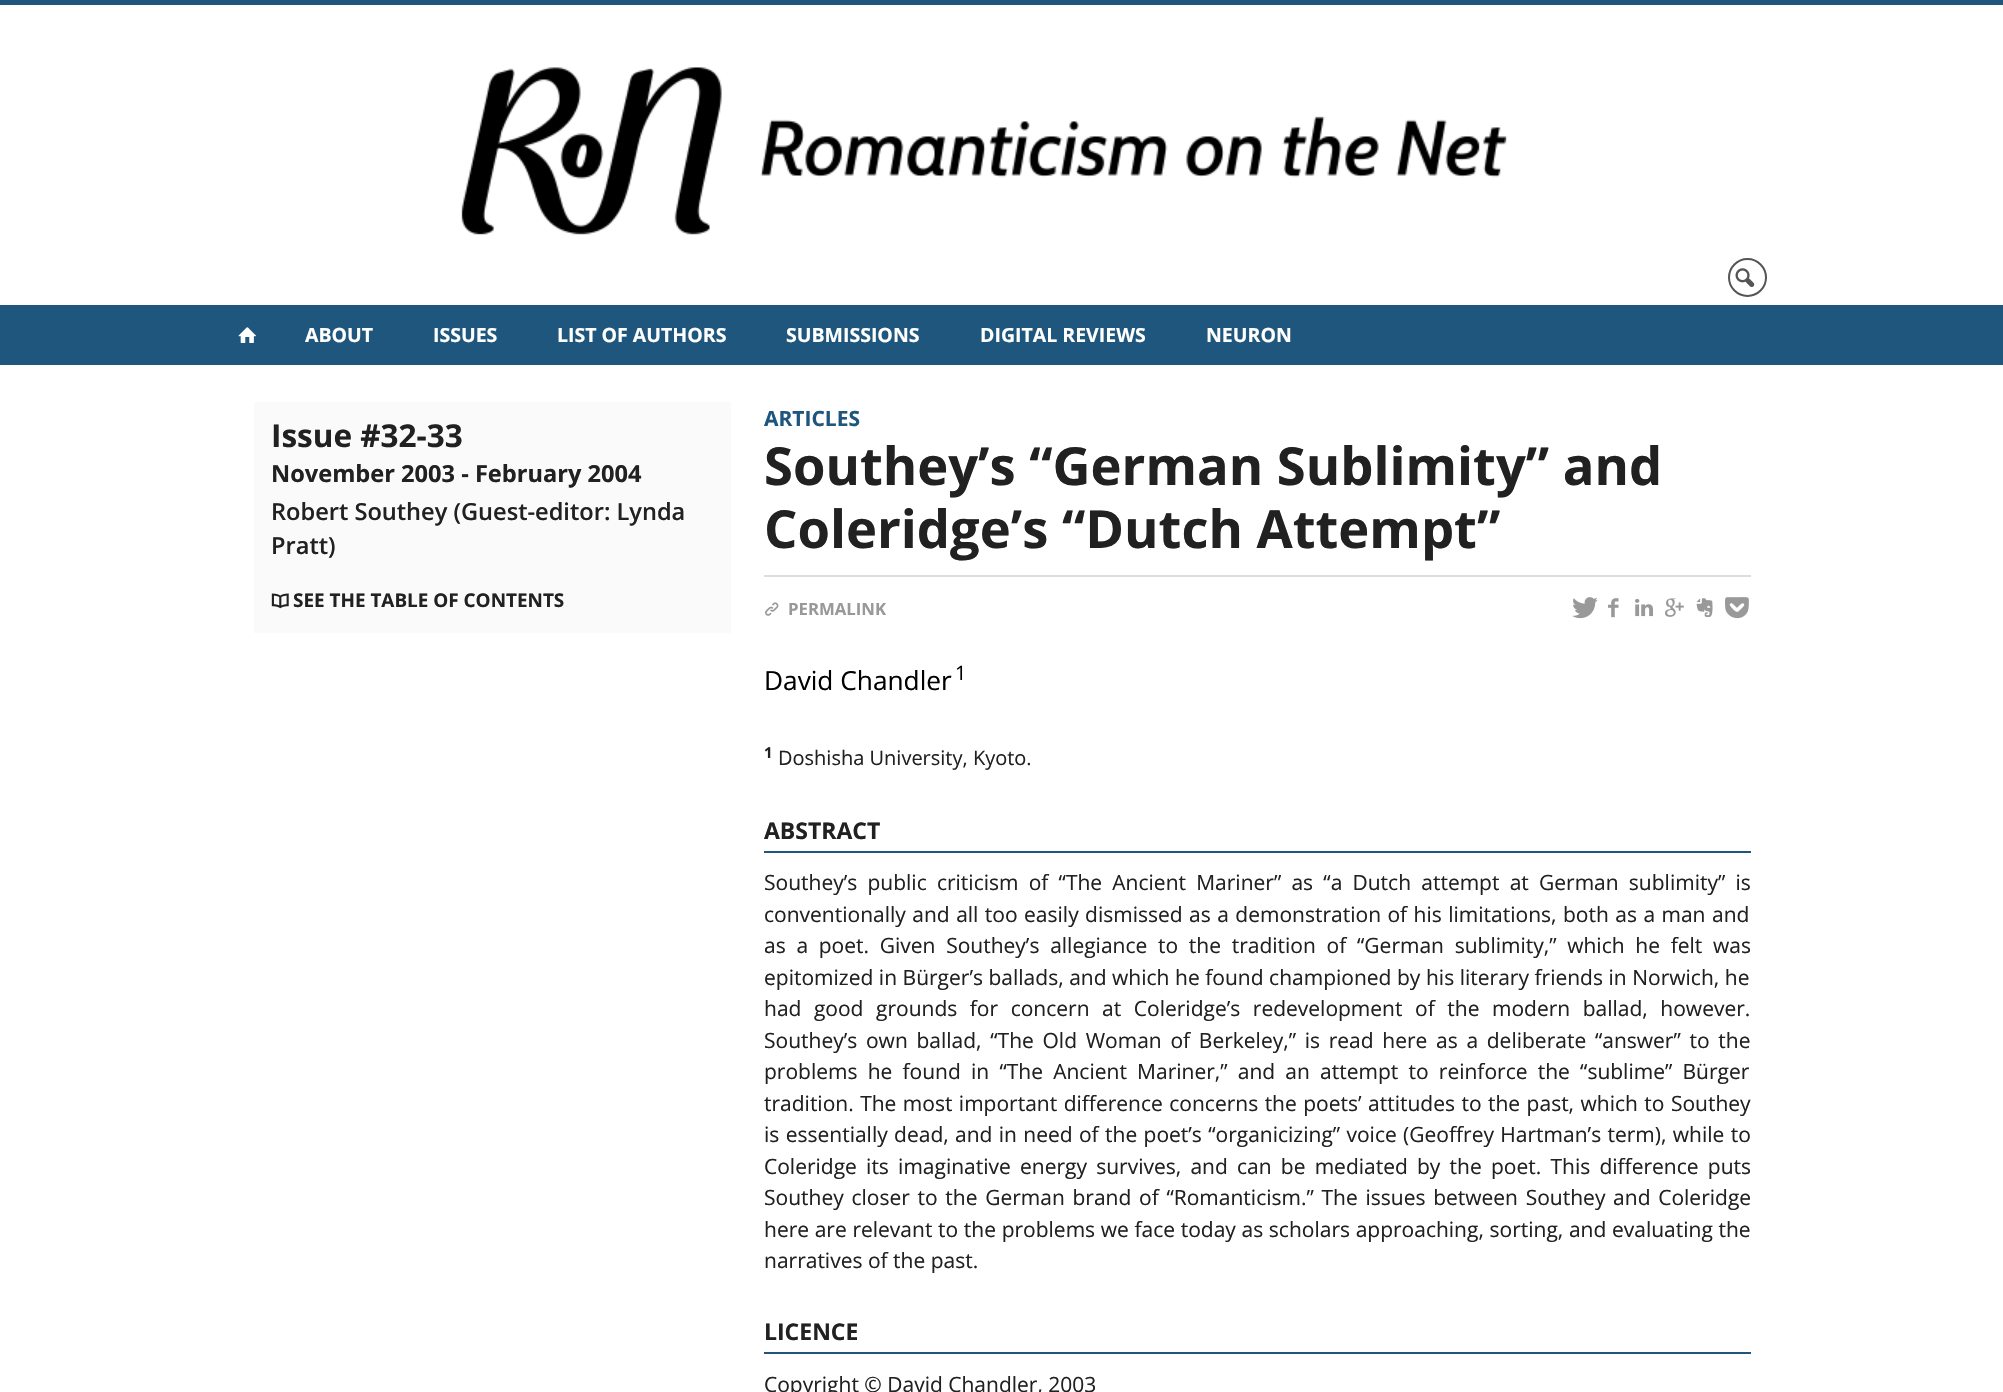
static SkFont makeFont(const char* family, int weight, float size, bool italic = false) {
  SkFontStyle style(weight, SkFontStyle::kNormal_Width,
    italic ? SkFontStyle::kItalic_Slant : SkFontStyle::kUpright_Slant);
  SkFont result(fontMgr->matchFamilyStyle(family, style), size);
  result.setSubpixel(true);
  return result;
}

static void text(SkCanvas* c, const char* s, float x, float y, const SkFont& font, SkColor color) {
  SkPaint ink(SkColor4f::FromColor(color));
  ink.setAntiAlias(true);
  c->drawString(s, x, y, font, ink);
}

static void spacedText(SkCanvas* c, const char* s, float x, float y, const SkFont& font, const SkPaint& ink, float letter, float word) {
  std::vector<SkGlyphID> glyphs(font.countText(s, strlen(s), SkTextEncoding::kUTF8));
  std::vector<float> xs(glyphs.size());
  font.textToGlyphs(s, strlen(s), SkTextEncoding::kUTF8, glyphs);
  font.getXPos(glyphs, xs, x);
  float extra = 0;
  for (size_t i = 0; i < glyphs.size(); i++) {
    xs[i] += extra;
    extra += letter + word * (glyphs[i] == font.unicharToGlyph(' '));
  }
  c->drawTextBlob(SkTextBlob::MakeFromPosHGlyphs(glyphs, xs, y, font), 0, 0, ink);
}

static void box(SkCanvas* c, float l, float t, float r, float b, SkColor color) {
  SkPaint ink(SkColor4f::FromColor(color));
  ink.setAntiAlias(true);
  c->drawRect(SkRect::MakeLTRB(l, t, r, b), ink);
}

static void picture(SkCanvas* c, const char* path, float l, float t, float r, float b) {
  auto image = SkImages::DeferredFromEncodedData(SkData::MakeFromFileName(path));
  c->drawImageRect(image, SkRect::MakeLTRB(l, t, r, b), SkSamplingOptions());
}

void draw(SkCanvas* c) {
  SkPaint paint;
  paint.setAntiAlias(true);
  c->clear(0xffffffff);
  box(c, 0, 0, 2003, 5, 0xff1f567d);
  picture(c, "img_01.png", 461, 67, 1507, 235);
  paint.setStyle(SkPaint::kStroke_Style);
  paint.setStrokeWidth(2);
  paint.setColor(0xff555555);
  c->drawCircle(1747.5f, 277.5f, 18.5f, paint);
  picture(c, "img_02.png", 1735, 268, 1755, 287);
  box(c, 0, 305, 2003, 365, 0xff1f567d);
  picture(c, "img_03.png", 238, 327, 256, 343);
  SkFont face1 = makeFont("Open Sans", 700, 19.5f);
  text(c, "ABOUT", 305, 342, face1, 0xffffffff);
  text(c, "ISSUES", 433, 342, face1, 0xffffffff);
  text(c, "LIST OF AUTHORS", 557, 342, face1, 0xffffffff);
  text(c, "SUBMISSIONS", 786, 342, face1, 0xffffffff);
  text(c, "DIGITAL REVIEWS", 980, 342, face1, 0xffffffff);
  text(c, "NEURON", 1206, 342, face1, 0xffffffff);
  box(c, 254, 402, 731, 633, 0xfffafafa);
  SkFont face2 = makeFont("Open Sans", 700, 31.5f);
  text(c, "Issue #32-33", 271, 447, face2, 0xff212121);
  SkFont face3 = makeFont("Open Sans", 700, 23.6f);
  text(c, "November 2003 - February 2004", 271, 482, face3, 0xff212121);
  SkFont face4 = makeFont("Open Sans", 600, 23.6f);
  text(c, "Robert Southey (Guest-editor: Lynda", 271, 520, face4, 0xff212121);
  text(c, "Pratt)", 271, 554, face4, 0xff212121);
  picture(c, "img_04.png", 271, 593, 289, 609);
  SkFont face5 = makeFont("Open Sans", 700, 18.9f);
  text(c, "SEE THE TABLE OF CONTENTS", 293, 607, face5, 0xff212121);
  SkFont face6 = makeFont("Open Sans", 700, 21);
  text(c, "ARTICLES", 764, 426, face6, 0xff1f567d);
  SkFont face7 = makeFont("Open Sans", 700, 52.5f);
  text(c, "Southey’s “German Sublimity” and", 764, 485, face7, 0xff212121);
  text(c, "Coleridge’s “Dutch Attempt”", 764, 548, face7, 0xff212121);
  box(c, 764, 575, 1751, 577, 0xffdddddd);
  picture(c, "img_05.png", 765, 602, 779, 616);
  SkFont face8 = makeFont("Open Sans", 700, 16.75f);
  text(c, "PERMALINK", 788, 615, face8, 0xff999999);
  picture(c, "img_06.png", 1572, 597, 1598, 619);
  picture(c, "img_07.png", 1608, 598, 1619, 618);
  picture(c, "img_08.png", 1635, 598, 1653, 617);
  picture(c, "img_09.png", 1665, 598, 1684, 617);
  picture(c, "img_10.png", 1696, 598, 1713, 618);
  picture(c, "img_11.png", 1725, 597, 1749, 619);
  SkFont face9 = makeFont("Open Sans", 400, 26.25f);
  text(c, "David Chandler", 764, 690, face9, 0xff000000);
  SkFont face10 = makeFont("Open Sans", 400, 20);
  text(c, "1", 955, 680, face10, 0xff000000);
  SkFont face11 = makeFont("Open Sans", 700, 15);
  text(c, "1", 764, 758, face11, 0xff212121);
  text(c, "Doshisha University, Kyoto.", 778, 765, face10, 0xff212121);
  box(c, 764, 851, 1751, 853, 0xff1f567d);
  SkFont face12 = makeFont("Open Sans", 700, 23);
  text(c, "ABSTRACT", 764, 839, face12, 0xff212121);
  SkFont face13 = makeFont("Open Sans", 400, 21);
  paint.setStyle(SkPaint::kFill_Style);
  paint.setColor(0xff212121);
  spacedText(c, "Southey’s public criticism of “The Ancient Mariner” as “a Dutch attempt at German sublimity” is", 764, 890, face13, paint, 0, 4.75f);
  spacedText(c, "conventionally and all too easily dismissed as a demonstration of his limitations, both as a man and", 764, 922, face13, paint, 0, 1);
  spacedText(c, "as a poet. Given Southey’s allegiance to the tradition of “German sublimity,” which he felt was", 764, 953, face13, paint, 0, 5.25f);
  spacedText(c, "epitomized in Bürger’s ballads, and which he found championed by his literary friends in Norwich, he", 764, 985, face13, paint, 0, 0.1f);
  spacedText(c, "had good grounds for concern at Coleridge’s redevelopment of the modern ballad, however.", 764, 1016, face13, paint, 0, 7.1f);
  spacedText(c, "Southey’s own ballad, “The Old Woman of Berkeley,” is read here as a deliberate “answer” to the", 764, 1048, face13, paint, 0, 3.25f);
  spacedText(c, "problems he found in “The Ancient Mariner,” and an attempt to reinforce the “sublime” Bürger", 764, 1079, face13, paint, 0, 4.75f);
  spacedText(c, "tradition. The most important difference concerns the poets’ attitudes to the past, which to Southey", 764, 1111, face13, paint, 0, 1);
  spacedText(c, "is essentially dead, and in need of the poet’s “organicizing” voice (Geoffrey Hartman’s term), while to", 764, 1142, face13, paint, 0, 0.9f);
  spacedText(c, "Coleridge its imaginative energy survives, and can be mediated by the poet. This difference puts", 764, 1174, face13, paint, 0, 3.75f);
  spacedText(c, "Southey closer to the German brand of “Romanticism.” The issues between Southey and Coleridge", 764, 1205, face13, paint, 0, 2.25f);
  spacedText(c, "here are relevant to the problems we face today as scholars approaching, sorting, and evaluating the", 764, 1237, face13, paint, 0, 0.2f);
  text(c, "narratives of the past.", 764, 1268, face13, 0xff212121);
  box(c, 764, 1352, 1751, 1354, 0xff1f567d);
  text(c, "LICENCE", 764, 1340, face12, 0xff212121);
  text(c, "Copyright © David Chandler, 2003", 764, 1392, face13, 0xff212121);
}
